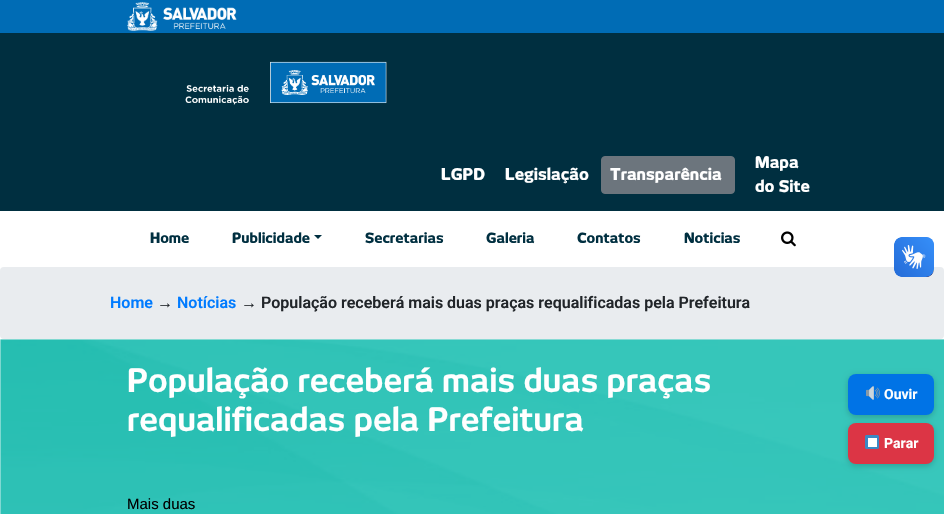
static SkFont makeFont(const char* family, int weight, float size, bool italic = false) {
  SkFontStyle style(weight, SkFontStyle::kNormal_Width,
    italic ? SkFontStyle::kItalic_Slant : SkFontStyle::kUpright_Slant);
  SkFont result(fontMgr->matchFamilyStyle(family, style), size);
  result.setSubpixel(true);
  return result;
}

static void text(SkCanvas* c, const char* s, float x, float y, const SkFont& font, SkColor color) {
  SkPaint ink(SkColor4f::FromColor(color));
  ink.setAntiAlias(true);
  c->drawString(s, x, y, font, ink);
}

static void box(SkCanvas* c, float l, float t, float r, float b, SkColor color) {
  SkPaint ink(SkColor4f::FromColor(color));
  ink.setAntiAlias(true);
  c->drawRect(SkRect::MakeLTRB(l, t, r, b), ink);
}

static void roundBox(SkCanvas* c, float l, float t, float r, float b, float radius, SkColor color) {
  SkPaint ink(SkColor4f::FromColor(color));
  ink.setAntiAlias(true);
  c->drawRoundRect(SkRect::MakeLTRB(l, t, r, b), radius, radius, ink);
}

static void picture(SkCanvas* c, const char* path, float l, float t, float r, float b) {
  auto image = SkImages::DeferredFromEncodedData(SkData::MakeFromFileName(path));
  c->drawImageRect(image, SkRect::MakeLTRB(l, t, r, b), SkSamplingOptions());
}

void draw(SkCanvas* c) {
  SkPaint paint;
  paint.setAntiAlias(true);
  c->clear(0xffffffff);
  box(c, 0, 0, 944, 33, 0xff006cb5);
  picture(c, "img_01.png", 127, 2, 237, 31);
  box(c, 0, 33, 944, 211, 0xff002f40);
  picture(c, "img_02.png", 185, 61, 387, 105);
  SkFont face1 = makeFont("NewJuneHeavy", 900, 16);
  text(c, "LGPD", 441, 180, face1, 0xffffffff);
  text(c, "Legislação", 505, 180, face1, 0xffffffff);
  paint.setColor(0xff6c757d);
  c->drawRoundRect(SkRect::MakeLTRB(601.5f, 156.5f, 734.5f, 193.5f), 3.5f, 3.5f, paint);
  paint.setStyle(SkPaint::kStroke_Style);
  paint.setStrokeWidth(1);
  c->drawRoundRect(SkRect::MakeLTRB(601.5f, 156.5f, 734.5f, 193.5f), 3.5f, 3.5f, paint);
  text(c, "Transparência", 610, 180, face1, 0xffffffff);
  text(c, "Mapa", 755, 168, face1, 0xffffffff);
  text(c, "do Site", 755, 192, face1, 0xffffffff);
  SkFont face2 = makeFont("NewJuneHeavy", 900, 14);
  text(c, "Home", 150, 243, face2, 0xff002f40);
  text(c, "Publicidade", 232, 243, face2, 0xff002f40);
  paint.setStyle(SkPaint::kFill_Style);
  paint.setColor(0xff002f40);
  c->drawPath(SkPathBuilder().moveTo(314, 235).lineTo(322, 235).lineTo(318, 239).close().detach(), paint);
  text(c, "Secretarias", 365, 243, face2, 0xff002f40);
  text(c, "Galeria", 486, 243, face2, 0xff002f40);
  text(c, "Contatos", 577, 243, face2, 0xff002f40);
  text(c, "Noticias", 684, 243, face2, 0xff002f40);
  picture(c, "img_03.png", 781, 231, 796, 247);
  roundBox(c, 0, 267, 944, 339, 4, 0xffe9ecef);
  picture(c, "img_04.png", 894, 237, 934, 277);
  picture(c, "img_05.png", 894, 237, 934, 277);
  SkFont face3 = makeFont("Roboto", 600, 16);
  text(c, "Home", 110, 308, face3, 0xff007bff);
  SkFont face4 = makeFont("Liberation Sans", 700, 16);
  text(c, "→", 157, 308, face4, 0xff212529);
  text(c, "Notícias", 177, 308, face3, 0xff007bff);
  text(c, "→", 241, 308, face4, 0xff212529);
  text(c, "População receberá mais duas praças requalificadas pela Prefeitura", 261, 308, face3, 0xff212529);
  picture(c, "img_06.png", 0, 339, 944, 514);
  SkFont face5 = makeFont("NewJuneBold", 700, 32);
  text(c, "População receberá mais duas praças", 127, 392, face5, 0xffffffff);
  text(c, "requalificadas pela Prefeitura", 127, 431, face5, 0xffffffff);
  SkFont face6 = makeFont("Liberation Sans", 400, 15);
  text(c, "Mais duas", 127, 509, face6, 0xff000000);
  paint.setColor(0x33000000);
  paint.setMaskFilter(SkMaskFilter::MakeBlur(kNormal_SkBlurStyle, 3));
  c->drawRoundRect(SkRect::MakeLTRB(848, 376, 934, 417), 8, 8, paint);
  paint.setMaskFilter(nullptr);
  roundBox(c, 848, 374, 934, 415, 8, 0xff0073e6);
  picture(c, "img_07.png", 866, 386, 880, 400);
  SkFont face7 = makeFont("Roboto", 700, 14);
  text(c, "Ouvir", 884, 399, face7, 0xffffffff);
  paint.setMaskFilter(SkMaskFilter::MakeBlur(kNormal_SkBlurStyle, 3));
  c->drawRoundRect(SkRect::MakeLTRB(848, 425, 934, 466), 8, 8, paint);
  paint.setMaskFilter(nullptr);
  roundBox(c, 848, 423, 934, 464, 8, 0xffdc3545);
  picture(c, "img_08.png", 865, 435, 879, 449);
  text(c, "Parar", 884, 448, face7, 0xffffffff);
}
